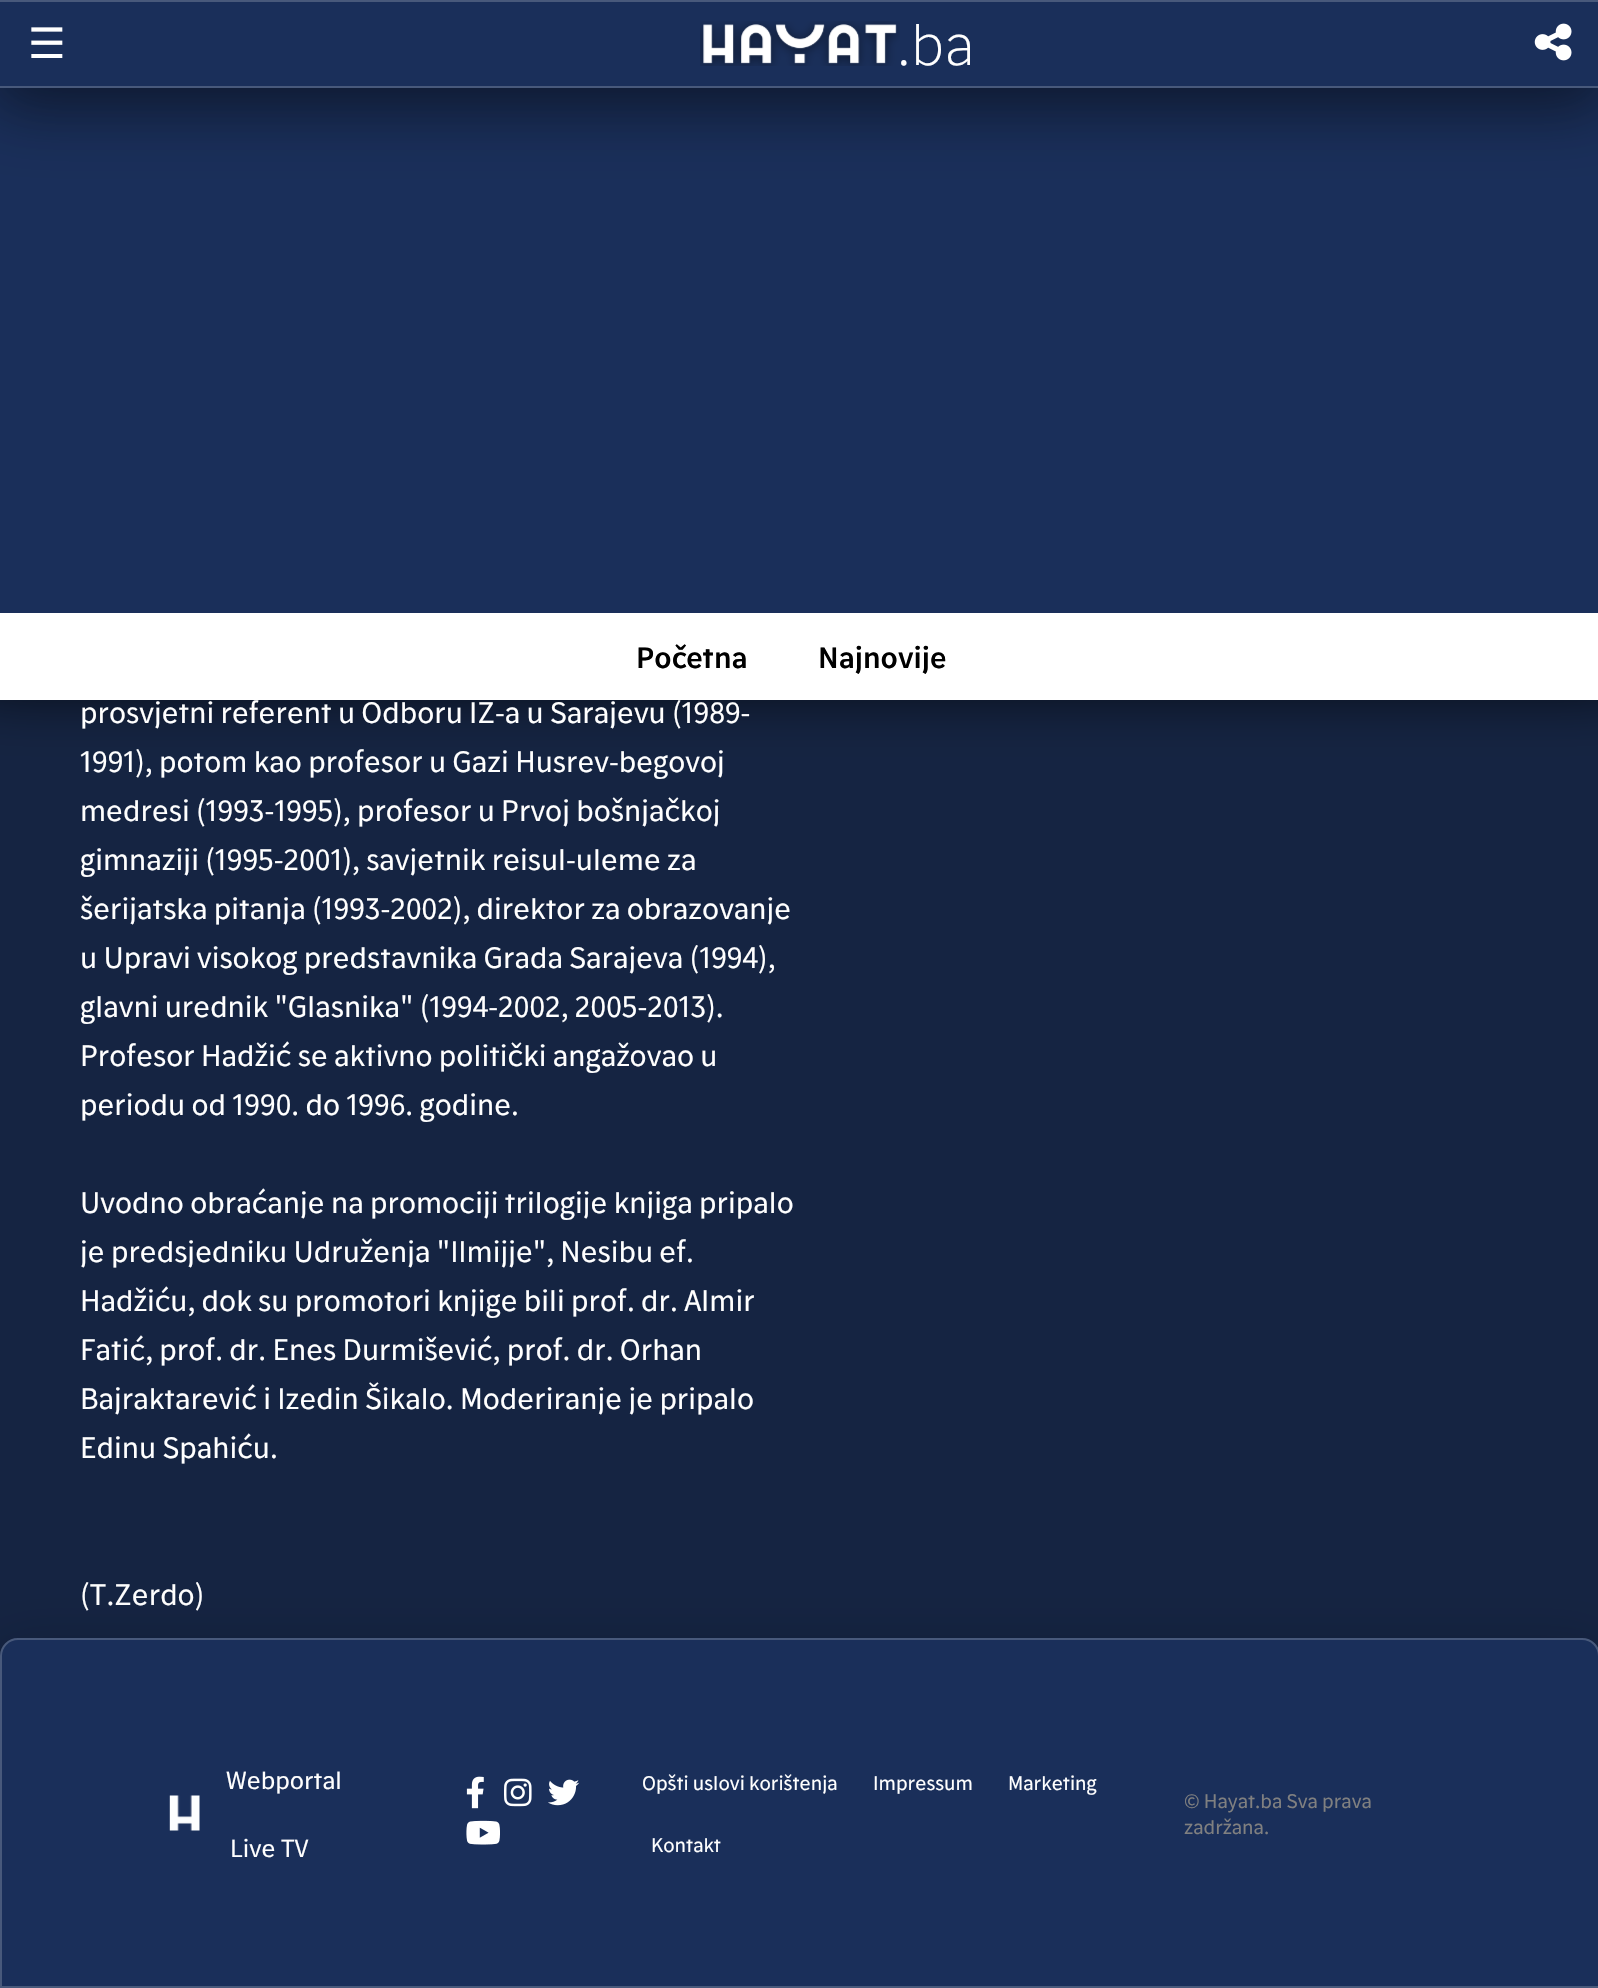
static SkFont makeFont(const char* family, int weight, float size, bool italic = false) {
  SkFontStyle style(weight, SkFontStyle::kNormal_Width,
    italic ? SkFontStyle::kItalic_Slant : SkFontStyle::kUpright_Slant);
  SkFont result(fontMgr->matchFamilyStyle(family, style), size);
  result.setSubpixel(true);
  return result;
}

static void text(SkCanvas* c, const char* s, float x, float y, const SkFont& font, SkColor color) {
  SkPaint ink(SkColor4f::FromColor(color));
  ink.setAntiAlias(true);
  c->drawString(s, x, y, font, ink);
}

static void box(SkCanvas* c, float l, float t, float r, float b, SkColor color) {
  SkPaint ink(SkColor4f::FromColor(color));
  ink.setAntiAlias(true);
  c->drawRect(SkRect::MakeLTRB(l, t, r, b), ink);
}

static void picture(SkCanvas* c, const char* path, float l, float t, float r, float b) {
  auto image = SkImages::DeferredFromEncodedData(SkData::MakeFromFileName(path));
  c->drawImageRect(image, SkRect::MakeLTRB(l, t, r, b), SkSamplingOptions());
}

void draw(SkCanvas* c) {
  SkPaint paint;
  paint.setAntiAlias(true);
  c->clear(0xff152442);
  paint.setColor(0xff000000);
  paint.setMaskFilter(SkMaskFilter::MakeBlur(kNormal_SkBlurStyle, 35));
  c->drawRect(SkRect::MakeLTRB(-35, 525, 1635, 683), paint);
  paint.setMaskFilter(nullptr);
  box(c, 0, 88, 1598, 613, 0xff1a2f5a);
  paint.setColor(0x40000000);
  paint.setMaskFilter(SkMaskFilter::MakeBlur(kNormal_SkBlurStyle, 28));
  c->drawRect(SkRect::MakeLTRB(0, 14, 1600, 102), paint);
  paint.setMaskFilter(nullptr);
  paint.setColor(0x59000000);
  paint.setMaskFilter(SkMaskFilter::MakeBlur(kNormal_SkBlurStyle, 35));
  c->drawRect(SkRect::MakeLTRB(-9, 18, 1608, 105), paint);
  paint.setMaskFilter(nullptr);
  paint.setColor(0xff1a2f5a);
  c->drawRect(SkRect::MakeLTRB(-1, 1, 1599, 87), paint);
  paint.setStyle(SkPaint::kStroke_Style);
  paint.setStrokeWidth(2);
  paint.setColor(0xff48597b);
  c->drawRect(SkRect::MakeLTRB(-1, 1, 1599, 87), paint);
  SkFont face1 = makeFont("DejaVu Sans", 400, 42);
  text(c, "☰", 28, 58, face1, 0xffffffff);
  picture(c, "img_01.png", 700, 21, 900, 66);
  SkFont face2 = makeFont("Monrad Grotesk", 300, 62);
  text(c, ".ba", 897, 65, face2, 0xffffffff);
  picture(c, "img_02.png", 1534, 23, 1572, 61);
  box(c, 0, 613, 1598, 700, 0xffffffff);
  SkFont face3 = makeFont("Monrad Grotesk", 600, 31.5f);
  text(c, "Početna", 636, 668, face3, 0xff000000);
  text(c, "Najnovije", 818, 668, face3, 0xff000000);
  SkFont face4 = makeFont("Monrad Grotesk", 400, 31.5f);
  text(c, "prosvjetni referent u Odboru IZ-a u Sarajevu (1989-", 80, 723, face4, 0xffffffff);
  text(c, "1991), potom kao profesor u Gazi Husrev-begovoj", 80, 772, face4, 0xffffffff);
  text(c, "medresi (1993-1995), profesor u Prvoj bošnjačkoj", 80, 821, face4, 0xffffffff);
  text(c, "gimnaziji (1995-2001), savjetnik reisul-uleme za", 80, 870, face4, 0xffffffff);
  text(c, "šerijatska pitanja (1993-2002), direktor za obrazovanje", 80, 919, face4, 0xffffffff);
  text(c, "u Upravi visokog predstavnika Grada Sarajeva (1994),", 80, 968, face4, 0xffffffff);
  text(c, "glavni urednik \"Glasnika\" (1994-2002, 2005-2013).", 80, 1017, face4, 0xffffffff);
  text(c, "Profesor Hadžić se aktivno politički angažovao u", 80, 1066, face4, 0xffffffff);
  text(c, "periodu od 1990. do 1996. godine.", 80, 1115, face4, 0xffffffff);
  text(c, "Uvodno obraćanje na promociji trilogije knjiga pripalo", 80, 1213, face4, 0xffffffff);
  text(c, "je predsjedniku Udruženja \"Ilmijje\", Nesibu ef.", 80, 1262, face4, 0xffffffff);
  text(c, "Hadžiću, dok su promotori knjige bili prof. dr. Almir", 80, 1311, face4, 0xffffffff);
  text(c, "Fatić, prof. dr. Enes Durmišević, prof. dr. Orhan", 80, 1360, face4, 0xffffffff);
  text(c, "Bajraktarević i Izedin Šikalo. Moderiranje je pripalo", 80, 1409, face4, 0xffffffff);
  text(c, "Edinu Spahiću.", 80, 1458, face4, 0xffffffff);
  text(c, "(T.Zerdo)", 80, 1605, face4, 0xffffffff);
  paint.setStyle(SkPaint::kFill_Style);
  paint.setColor(0x40000000);
  paint.setMaskFilter(SkMaskFilter::MakeBlur(kNormal_SkBlurStyle, 28));
  c->drawRoundRect(SkRect::MakeLTRB(0, 1652, 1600, 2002), 18, 18, paint);
  paint.setMaskFilter(nullptr);
  paint.setColor(0xff1a2f5a);
  c->drawPath(SkPathBuilder().moveTo(18, 1638).lineTo(1582, 1638).cubicTo(1592, 1638, 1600, 1646, 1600, 1656).lineTo(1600, 1988).lineTo(0, 1988).lineTo(0, 1656).cubicTo(0, 1646, 8, 1638, 18, 1638).close().detach(), paint);
  paint.setStyle(SkPaint::kStroke_Style);
  paint.setColor(0x33ffffff);
  c->drawPath(SkPathBuilder().moveTo(18, 1639).lineTo(1582, 1639).cubicTo(1591.5f, 1639, 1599, 1646.5f, 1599, 1656).lineTo(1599, 1987).lineTo(1, 1987).lineTo(1, 1656).cubicTo(1, 1646.5f, 8.5f, 1639, 18, 1639).close().detach(), paint);
  picture(c, "img_03.png", 169, 1795, 200, 1831);
  SkFont face5 = makeFont("Monrad Grotesk", 400, 26.25f);
  text(c, "Webportal", 226, 1789, face5, 0xffffffff);
  text(c, "Live TV", 230, 1857, face5, 0xffffffff);
  picture(c, "img_04.png", 466, 1776, 484, 1809);
  picture(c, "img_05.png", 504, 1778, 532, 1807);
  picture(c, "img_06.png", 548, 1779, 580, 1806);
  picture(c, "img_07.png", 466, 1820, 500, 1845);
  SkFont face6 = makeFont("Monrad Grotesk", 400, 21);
  text(c, "Opšti uslovi korištenja", 642, 1790, face6, 0xffffffff);
  text(c, "Impressum", 873, 1790, face6, 0xffffffff);
  text(c, "Marketing", 1008, 1790, face6, 0xffffffff);
  text(c, "Kontakt", 651, 1852, face6, 0xffffffff);
  text(c, "© Hayat.ba Sva prava", 1184, 1808, face6, 0xff808080);
  text(c, "zadržana.", 1184, 1834, face6, 0xff808080);
}
